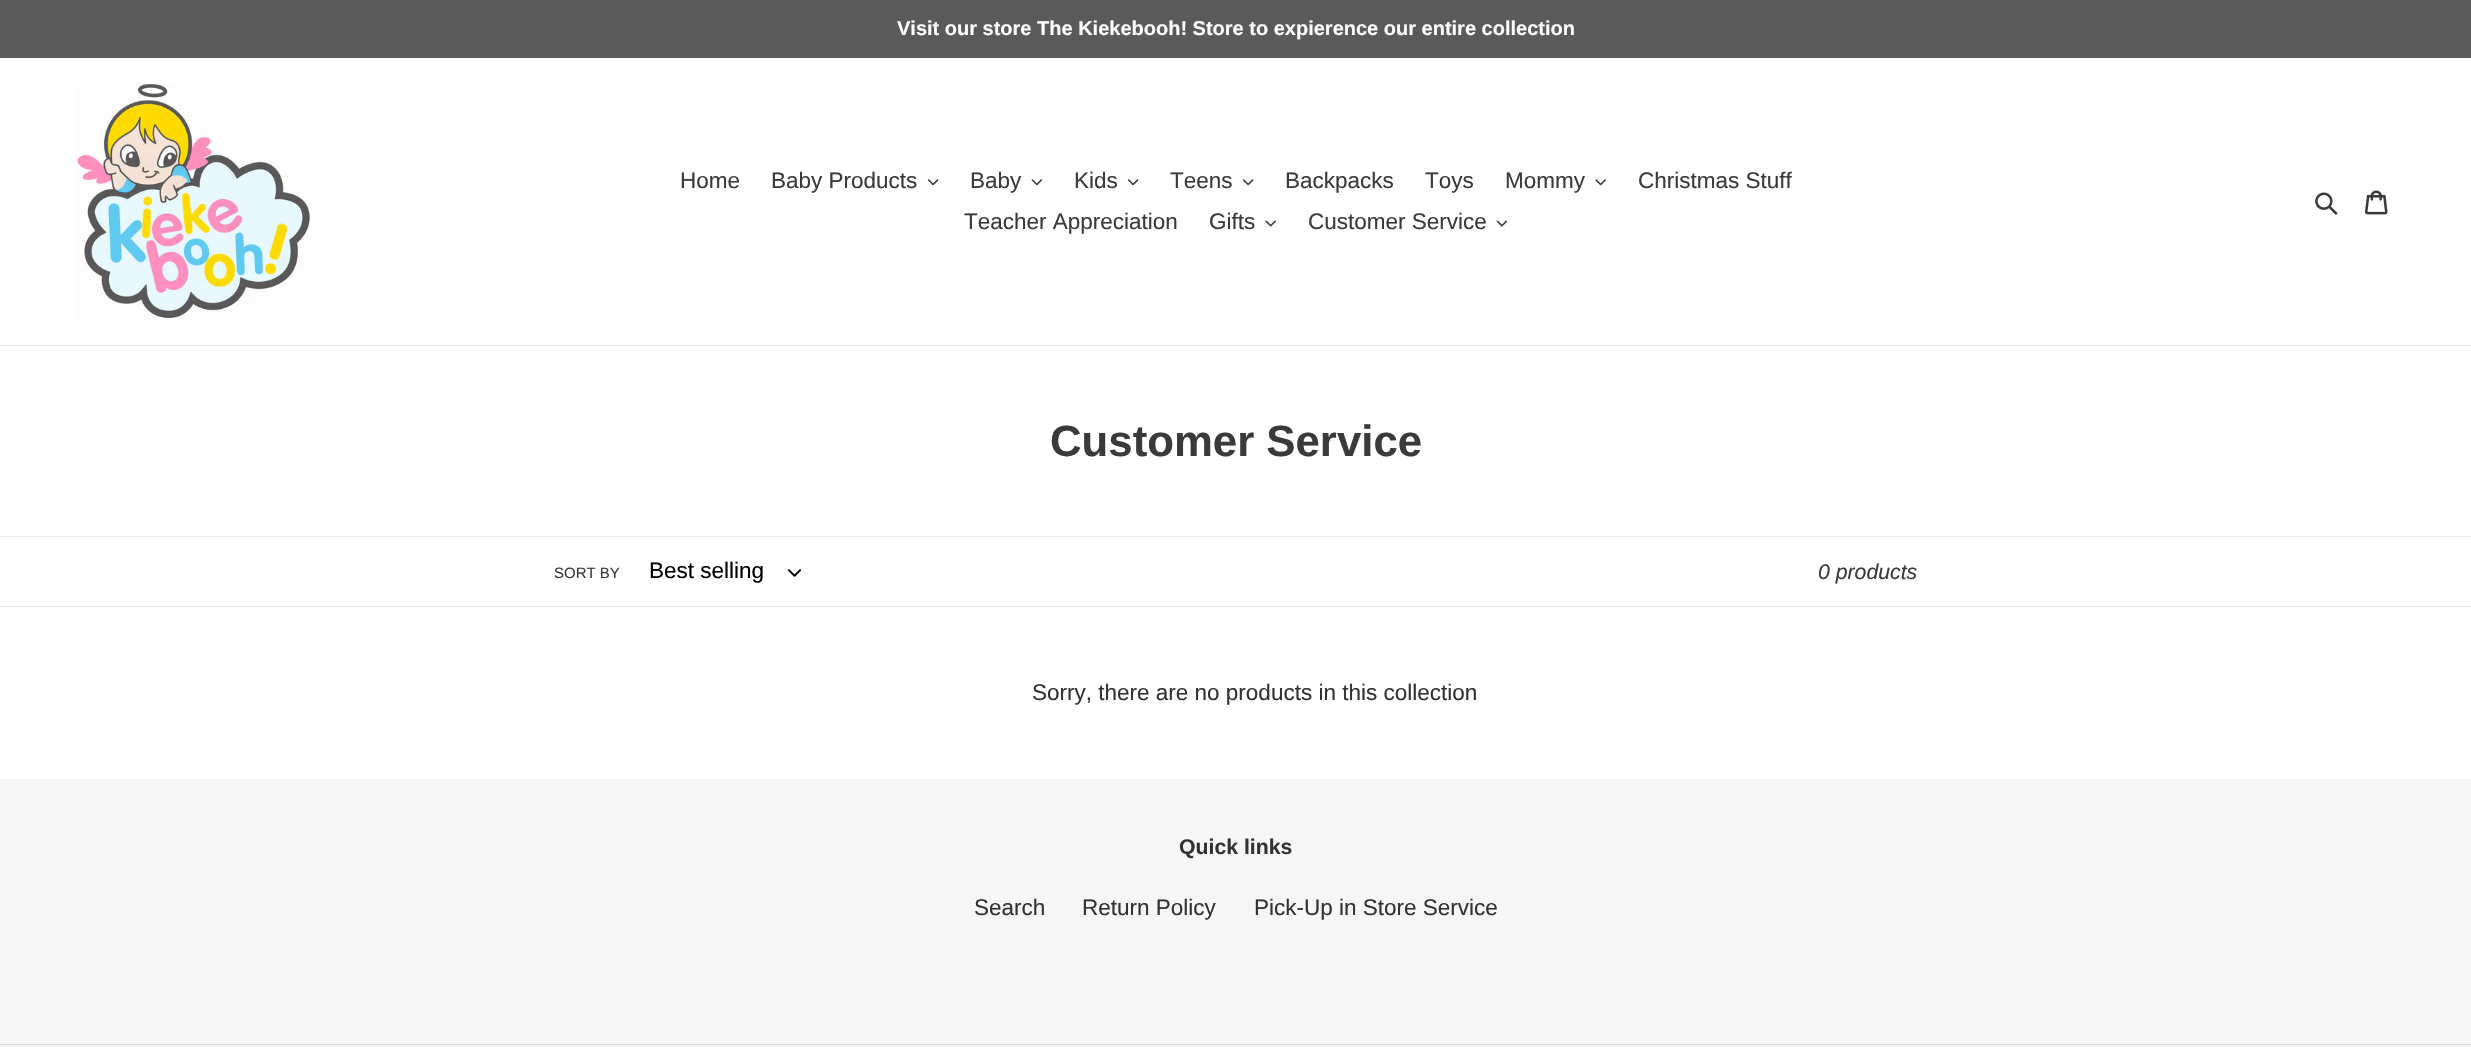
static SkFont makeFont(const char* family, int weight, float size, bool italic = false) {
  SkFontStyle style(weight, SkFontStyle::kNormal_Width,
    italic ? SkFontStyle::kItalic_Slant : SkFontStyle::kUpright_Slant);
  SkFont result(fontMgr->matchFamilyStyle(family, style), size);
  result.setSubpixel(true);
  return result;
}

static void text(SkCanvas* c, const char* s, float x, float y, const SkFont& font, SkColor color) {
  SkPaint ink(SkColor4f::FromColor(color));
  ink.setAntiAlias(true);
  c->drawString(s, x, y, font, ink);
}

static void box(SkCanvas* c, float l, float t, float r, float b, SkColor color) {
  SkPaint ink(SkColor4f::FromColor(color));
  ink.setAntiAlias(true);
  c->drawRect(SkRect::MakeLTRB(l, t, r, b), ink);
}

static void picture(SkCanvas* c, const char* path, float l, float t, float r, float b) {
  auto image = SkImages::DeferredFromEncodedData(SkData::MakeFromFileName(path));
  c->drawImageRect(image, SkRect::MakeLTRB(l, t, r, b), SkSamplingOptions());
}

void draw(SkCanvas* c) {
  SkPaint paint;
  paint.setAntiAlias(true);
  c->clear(0xffffffff);
  box(c, 0, 0, 2471, 58, 0xff5a5a5a);
  SkFont face1 = makeFont("Liberation Sans", 700, 20);
  text(c, "Visit our store The Kiekebooh! Store to expierence our entire collection", 897, 35, face1, 0xffffffff);
  box(c, 0, 345, 2471, 346, 0xffebebeb);
  picture(c, "img_01.png", 74, 82, 311, 320);
  SkFont face2 = makeFont("Liberation Sans", 400, 22.5f);
  text(c, "Home", 680, 188, face2, 0xff3a3a3a);
  text(c, "Baby Products", 771, 188, face2, 0xff3a3a3a);
  picture(c, "img_02.png", 928, 179, 939, 186);
  text(c, "Baby", 970, 188, face2, 0xff3a3a3a);
  picture(c, "img_03.png", 1031, 179, 1043, 186);
  text(c, "Kids", 1074, 188, face2, 0xff3a3a3a);
  picture(c, "img_02.png", 1128, 179, 1139, 186);
  text(c, "Teens", 1170, 188, face2, 0xff3a3a3a);
  picture(c, "img_02.png", 1243, 179, 1254, 186);
  text(c, "Backpacks", 1285, 188, face2, 0xff3a3a3a);
  text(c, "Toys", 1425, 188, face2, 0xff3a3a3a);
  text(c, "Mommy", 1505, 188, face2, 0xff3a3a3a);
  picture(c, "img_04.png", 1595, 179, 1606, 186);
  text(c, "Christmas Stuff", 1638, 188, face2, 0xff3a3a3a);
  text(c, "Teacher Appreciation", 964, 229, face2, 0xff3a3a3a);
  text(c, "Gifts", 1209, 229, face2, 0xff3a3a3a);
  picture(c, "img_05.png", 1265, 220, 1276, 227);
  text(c, "Customer Service", 1308, 229, face2, 0xff3a3a3a);
  picture(c, "img_06.png", 1496, 220, 1508, 227);
  picture(c, "img_07.png", 2315, 192, 2338, 215);
  picture(c, "img_08.png", 2365, 190, 2388, 215);
  SkFont face3 = makeFont("Liberation Sans", 700, 43.75f);
  text(c, "Customer Service", 1050, 456, face3, 0xff3a3a3a);
  box(c, 0, 536, 2471, 537, 0xffebebeb);
  box(c, 0, 606, 2471, 607, 0xffebebeb);
  SkFont face4 = makeFont("Liberation Sans", 400, 15);
  text(c, "SORT BY", 554, 578, face4, 0xff3a3a3a);
  text(c, "Best selling", 649, 578, face2, 0xff000000);
  picture(c, "img_09.png", 788, 569, 801, 577);
  SkFont face5 = makeFont("Liberation Sans", 400, 21.25f, true);
  text(c, "0 products", 1818, 579, face5, 0xff3a3a3a);
  text(c, "Sorry, there are no products in this collection", 1032, 700, face2, 0xff333232);
  box(c, 0, 779, 2471, 1047, 0xfff6f6f6);
  SkFont face6 = makeFont("Liberation Sans", 700, 21.25f);
  text(c, "Quick links", 1179, 854, face6, 0xff333232);
  text(c, "Search", 974, 915, face2, 0xff333232);
  text(c, "Return Policy", 1082, 915, face2, 0xff333232);
  text(c, "Pick-Up in Store Service", 1254, 915, face2, 0xff333232);
  box(c, 0, 1044, 2471, 1045, 0xffdddddd);
}
